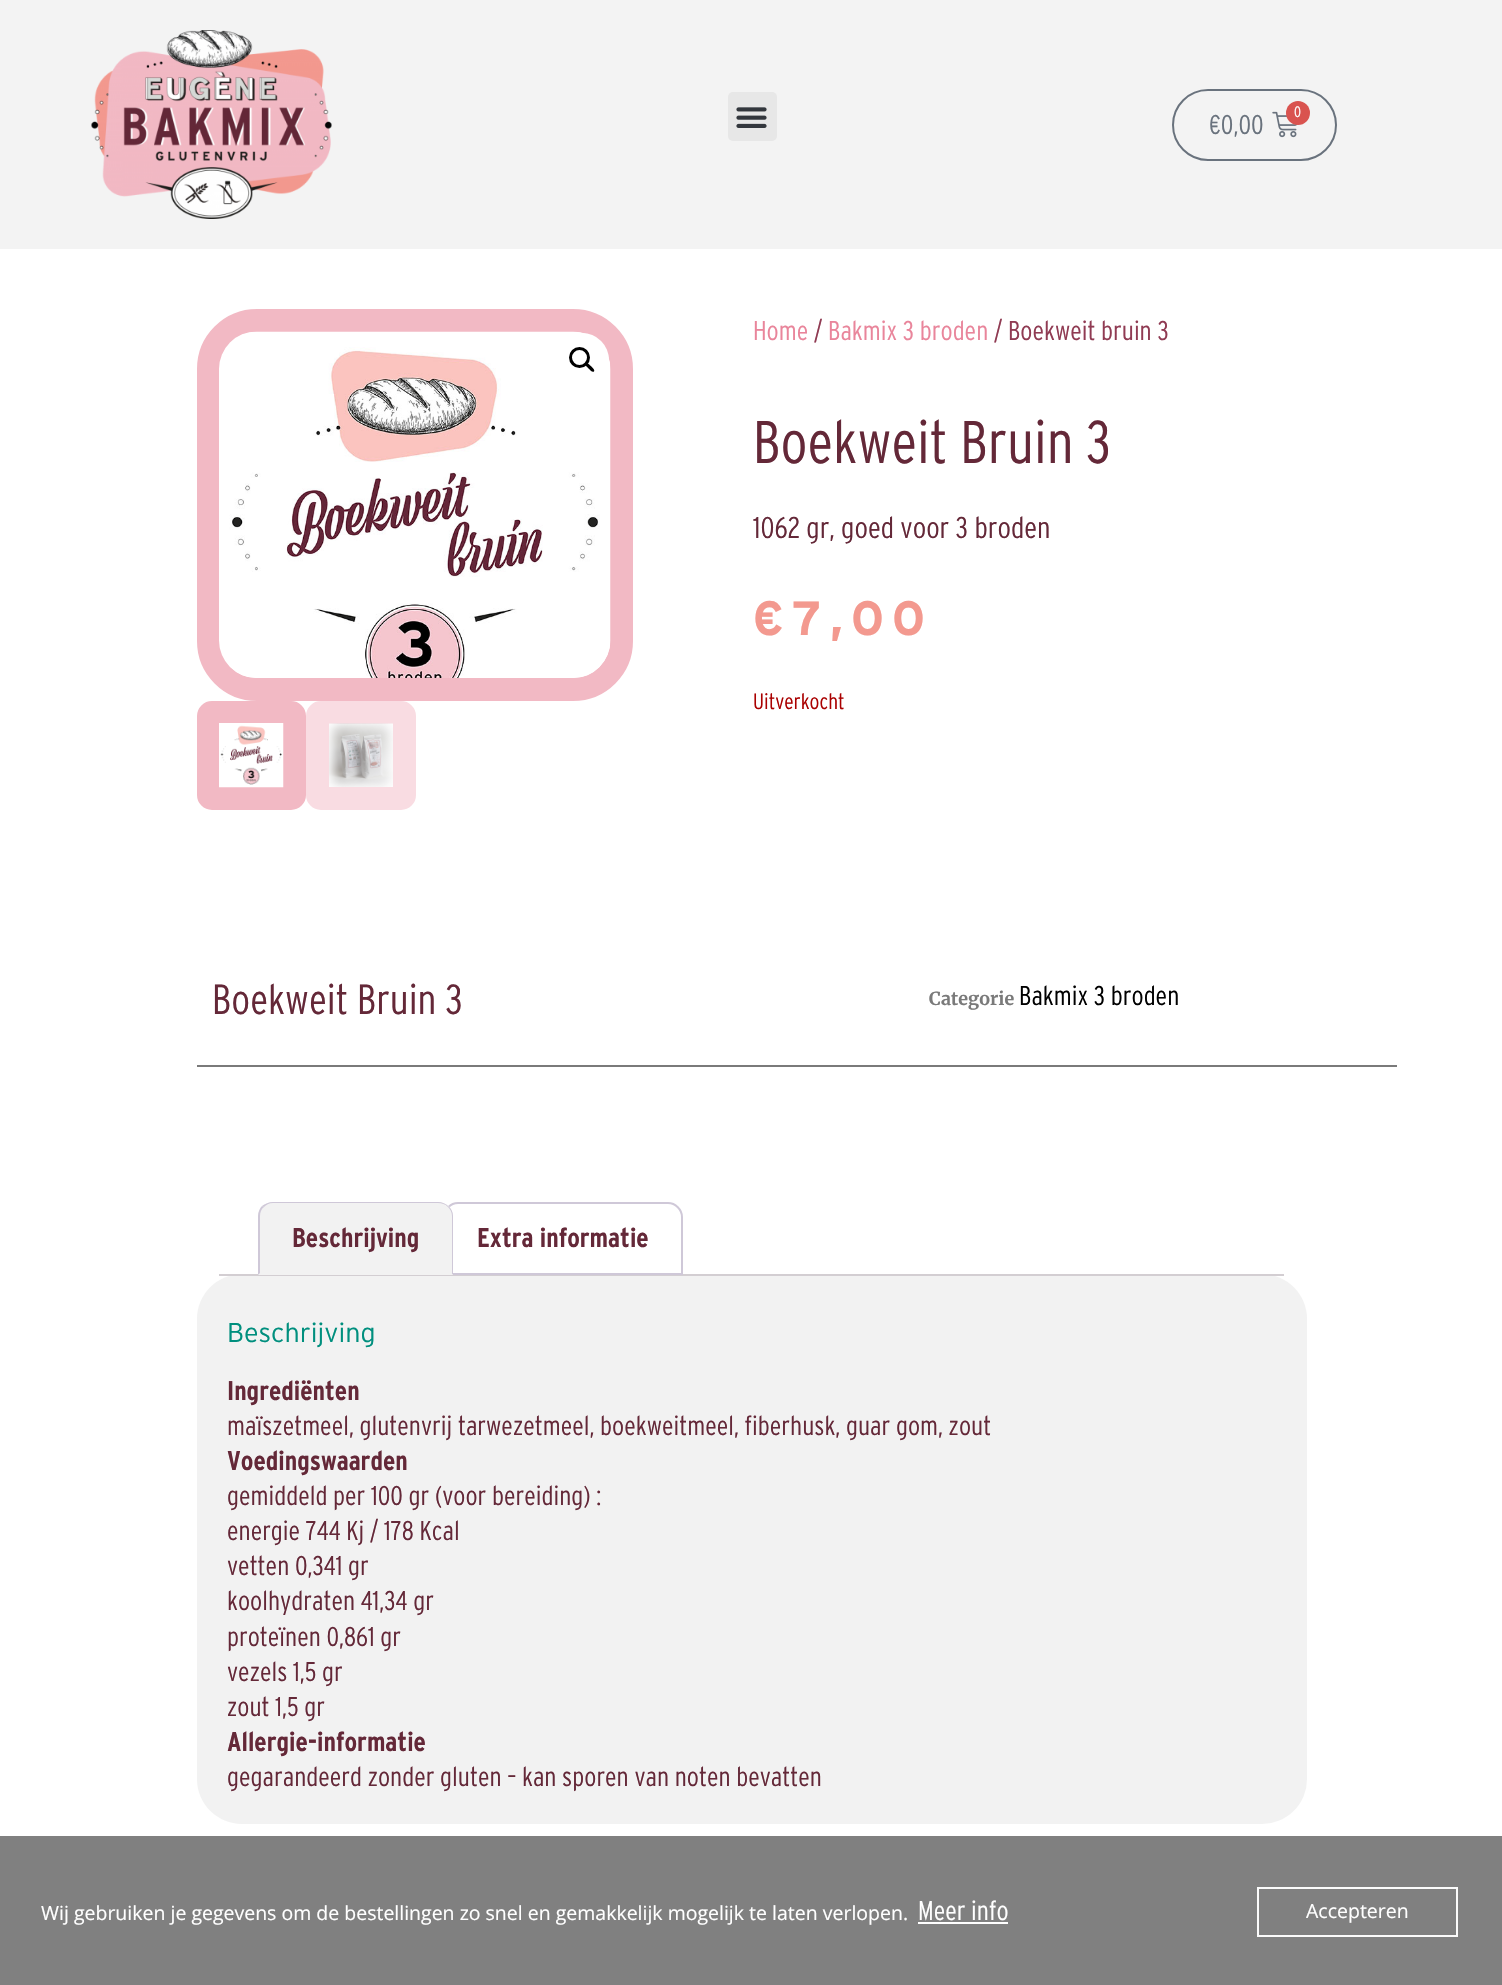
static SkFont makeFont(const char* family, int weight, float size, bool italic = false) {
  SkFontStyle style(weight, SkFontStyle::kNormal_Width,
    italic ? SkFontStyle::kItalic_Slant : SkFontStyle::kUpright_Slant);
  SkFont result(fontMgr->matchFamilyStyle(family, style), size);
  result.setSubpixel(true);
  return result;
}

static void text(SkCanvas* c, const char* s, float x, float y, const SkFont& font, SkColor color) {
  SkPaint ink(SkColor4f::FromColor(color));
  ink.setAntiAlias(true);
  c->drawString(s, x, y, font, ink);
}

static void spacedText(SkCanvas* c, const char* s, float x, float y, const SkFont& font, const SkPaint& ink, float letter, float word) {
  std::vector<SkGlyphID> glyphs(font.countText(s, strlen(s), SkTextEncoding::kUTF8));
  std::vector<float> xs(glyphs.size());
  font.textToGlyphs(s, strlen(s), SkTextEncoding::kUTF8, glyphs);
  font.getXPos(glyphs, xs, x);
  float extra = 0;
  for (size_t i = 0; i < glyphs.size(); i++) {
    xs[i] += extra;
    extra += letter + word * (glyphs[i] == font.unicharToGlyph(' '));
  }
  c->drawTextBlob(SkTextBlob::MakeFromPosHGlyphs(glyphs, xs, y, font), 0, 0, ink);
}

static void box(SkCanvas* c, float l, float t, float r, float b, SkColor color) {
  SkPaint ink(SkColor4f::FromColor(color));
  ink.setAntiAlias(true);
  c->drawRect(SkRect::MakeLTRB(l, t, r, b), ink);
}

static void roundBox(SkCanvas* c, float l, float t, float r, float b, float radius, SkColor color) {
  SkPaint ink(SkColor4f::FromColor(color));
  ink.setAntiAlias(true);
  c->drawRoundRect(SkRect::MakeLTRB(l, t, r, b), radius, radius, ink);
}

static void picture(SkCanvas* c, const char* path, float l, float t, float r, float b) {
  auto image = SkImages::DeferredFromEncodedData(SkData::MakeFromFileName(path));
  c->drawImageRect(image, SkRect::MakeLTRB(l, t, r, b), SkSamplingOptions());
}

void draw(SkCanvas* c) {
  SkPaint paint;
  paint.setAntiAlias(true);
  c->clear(0xffffffff);
  box(c, 0, 1836, 1502, 1985, 0xff808080);
  box(c, 0, 0, 1502, 249, 0xfff3f3f3);
  picture(c, "img_01.png", 91, 30, 332, 219);
  roundBox(c, 728, 92, 777, 141, 5, 0xffe7e7e7);
  picture(c, "img_02.png", 736, 107, 767, 128);
  paint.setStyle(SkPaint::kStroke_Style);
  paint.setStrokeWidth(2);
  paint.setColor(0xff69727d);
  c->drawRoundRect(SkRect::MakeLTRB(1173, 90, 1336, 160), 35, 35, paint);
  picture(c, "img_03.png", 1272, 111, 1298, 138);
  paint.setStyle(SkPaint::kFill_Style);
  paint.setColor(0xffd9534f);
  c->drawCircle(1298, 113, 12, paint);
  SkFont face1 = makeFont("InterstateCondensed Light", 300, 15);
  text(c, "0", 1294, 117, face1, 0xffffffff);
  SkFont face2 = makeFont("InterstateCondensed Light", 300, 27);
  text(c, "€0,00", 1209, 134, face2, 0xff69727d);
  paint.setStyle(SkPaint::kStroke_Style);
  paint.setStrokeWidth(23);
  paint.setColor(0xfff2b9c4);
  c->drawRoundRect(SkRect::MakeLTRB(208.5f, 320.5f, 621.5f, 689.5f), 48.5f, 48.5f, paint);
  picture(c, "img_04.png", 219, 331, 611, 678);
  paint.setStyle(SkPaint::kFill_Style);
  paint.setColor(0xffffffff);
  c->drawCircle(582, 360, 27, paint);
  paint.setStyle(SkPaint::kStroke_Style);
  paint.setStrokeWidth(3);
  paint.setColor(0xff000000);
  c->drawCircle(579.5f, 357.5f, 9, paint);
  paint.setStyle(SkPaint::kFill_Style);
  c->drawPath(SkPathBuilder().moveTo(585.5f, 363).cubicTo(587, 361.5f, 590, 365.5f, 591, 366).cubicTo(591.5f, 367, 595.5f, 370, 594, 371.5f).cubicTo(592.5f, 373, 589.5f, 369.5f, 588.5f, 368.5f).cubicTo(588, 367.5f, 584, 365, 585.5f, 363).close().detach(), paint);
  paint.setStyle(SkPaint::kStroke_Style);
  paint.setStrokeWidth(23);
  paint.setColor(0xfff2b9c4);
  c->drawRoundRect(SkRect::MakeLTRB(208.5f, 712.5f, 294.5f, 798.5f), 3.5f, 3.5f, paint);
  picture(c, "img_05.png", 219, 723, 284, 788);
  paint.setColor(0xfff9dce2);
  c->drawRoundRect(SkRect::MakeLTRB(317.5f, 712.5f, 404.5f, 798.5f), 3.5f, 3.5f, paint);
  picture(c, "img_06.png", 329, 723, 393, 787);
  text(c, "Home", 753, 340, face2, 0xffe9859b);
  text(c, "/", 814, 340, face2, 0xff903b53);
  text(c, "Bakmix 3 broden", 828, 340, face2, 0xffe9859b);
  text(c, "/ Boekweit bruin 3", 994, 340, face2, 0xff903b53);
  SkFont face3 = makeFont("InterstateCondensed Light", 300, 60);
  text(c, "Boekweit Bruin 3", 753, 463, face3, 0xff642838);
  SkFont face4 = makeFont("InterstateCondensed Light", 300, 30);
  text(c, "1062 gr, goed voor 3 broden", 753, 538, face4, 0xff642838);
  SkFont face5 = makeFont("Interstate", 700, 48);
  paint.setStyle(SkPaint::kFill_Style);
  paint.setColor(0xfff3998f);
  spacedText(c, "€7,00", 753, 635, face5, paint, 8, 0);
  SkFont face6 = makeFont("InterstateCondensed Light", 300, 22);
  text(c, "Uitverkocht", 753, 709, face6, 0xffaa0000);
  box(c, 197, 1065, 1397, 1067, 0xff7a7a7a);
  SkFont face7 = makeFont("InterstateCondensed Light", 300, 42);
  text(c, "Boekweit Bruin 3", 212, 1014, face7, 0xff642838);
  SkFont face8 = makeFont("Merriweather", 700, 18);
  text(c, "Categorie", 929, 1005, face8, 0xff7a7a7a);
  text(c, "Bakmix 3 broden", 1019, 1005, face2, 0xff000000);
  roundBox(c, 197, 1274, 1307, 1824, 45, 0xfff2f2f2);
  box(c, 219, 1274, 1284, 1276, 0xffd3ced2);
  paint.setColor(0xffffffff);
  c->drawPath(SkPathBuilder().moveTo(458, 1203).lineTo(668, 1203).cubicTo(675.5f, 1203, 682, 1209.5f, 682, 1217).lineTo(682, 1274).lineTo(444, 1274).lineTo(444, 1217).cubicTo(444, 1209.5f, 450.5f, 1203, 458, 1203).close().detach(), paint);
  paint.setStyle(SkPaint::kStroke_Style);
  paint.setStrokeWidth(2);
  paint.setColor(0xffcfc8d8);
  c->drawPath(SkPathBuilder().moveTo(458, 1203).lineTo(668, 1203).cubicTo(675.5f, 1203, 682, 1209.5f, 682, 1217).lineTo(682, 1274).lineTo(444, 1274).lineTo(444, 1217).cubicTo(444, 1209.5f, 450.5f, 1203, 458, 1203).close().detach(), paint);
  paint.setStyle(SkPaint::kFill_Style);
  paint.setColor(0xfff2f2f2);
  c->drawPath(SkPathBuilder().moveTo(273, 1202).lineTo(438, 1202).cubicTo(446.5f, 1202, 453, 1208.5f, 453, 1217).lineTo(453, 1275).lineTo(258, 1275).lineTo(258, 1217).cubicTo(258, 1208.5f, 264.5f, 1202, 273, 1202).close().detach(), paint);
  paint.setColor(0xffcfc8d8);
  c->drawPath(SkPathBuilder().moveTo(273, 1202).cubicTo(269, 1202, 265, 1204, 262, 1206).lineTo(264, 1207).cubicTo(266, 1205, 269, 1203, 273, 1203).lineTo(438, 1203).cubicTo(442, 1203, 445, 1204, 448, 1207).lineTo(448, 1206).cubicTo(446, 1204, 442, 1202, 438, 1202).close().detach(), paint);
  c->drawPath(SkPathBuilder().moveTo(448, 1206).cubicTo(451, 1208, 453, 1212, 453, 1216).lineTo(453, 1275).lineTo(452, 1274).lineTo(452, 1216).cubicTo(452, 1212, 450, 1209, 448, 1207).close().detach(), paint);
  paint.setColor(0xfff2f2f2);
  c->drawPath(SkPathBuilder().moveTo(453, 1275).lineTo(452, 1274).lineTo(260, 1274).lineTo(260, 1273).lineTo(258, 1275).close().detach(), paint);
  paint.setColor(0xffcfc8d8);
  c->drawPath(SkPathBuilder().moveTo(258, 1275).lineTo(260, 1273).lineTo(260, 1216).cubicTo(260, 1213, 261, 1209, 264, 1207).lineTo(262, 1206).cubicTo(260, 1208, 258, 1212, 258, 1216).close().detach(), paint);
  SkFont face9 = makeFont("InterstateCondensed", 700, 27);
  text(c, "Beschrijving", 292, 1247, face9, 0xff642838);
  text(c, "Extra informatie", 477, 1247, face9, 0xff642838);
  SkFont face10 = makeFont("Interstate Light", 300, 27);
  text(c, "Beschrijving", 227, 1342, face10, 0xff008f7e);
  text(c, "Ingrediënten", 227, 1400, face9, 0xff642838);
  text(c, "maïszetmeel, glutenvrij tarwezetmeel, boekweitmeel, fiberhusk, guar gom, zout", 227, 1435, face2, 0xff642838);
  text(c, "Voedingswaarden", 227, 1470, face9, 0xff642838);
  text(c, "gemiddeld per 100 gr (voor bereiding) :", 227, 1505, face2, 0xff642838);
  text(c, "energie 744 Kj / 178 Kcal", 227, 1540, face2, 0xff642838);
  text(c, "vetten 0,341 gr", 227, 1575, face2, 0xff642838);
  text(c, "koolhydraten 41,34 gr", 227, 1610, face2, 0xff642838);
  text(c, "proteïnen 0,861 gr", 227, 1646, face2, 0xff642838);
  text(c, "vezels 1,5 gr", 227, 1681, face2, 0xff642838);
  text(c, "zout 1,5 gr", 227, 1716, face2, 0xff642838);
  text(c, "Allergie-informatie", 227, 1751, face9, 0xff642838);
  text(c, "gegarandeerd zonder gluten – kan sporen van noten bevatten", 227, 1786, face2, 0xff642838);
  SkFont face11 = makeFont("Open Sans", 400, 19.5f);
  text(c, "Wij gebruiken je gegevens om de bestellingen zo snel en gemakkelijk mogelijk te laten verlopen.", 41, 1920, face11, 0xffffffff);
  text(c, "Meer info", 918, 1920, face2, 0xffffffff);
  box(c, 918, 1922, 1008, 1924, 0xffffffff);
  paint.setStyle(SkPaint::kStroke_Style);
  paint.setColor(0xf7ffffff);
  c->drawRect(SkRect::MakeLTRB(1258, 1888, 1457, 1936), paint);
  text(c, "Accepteren", 1306, 1918, face11, 0xffffffff);
}
